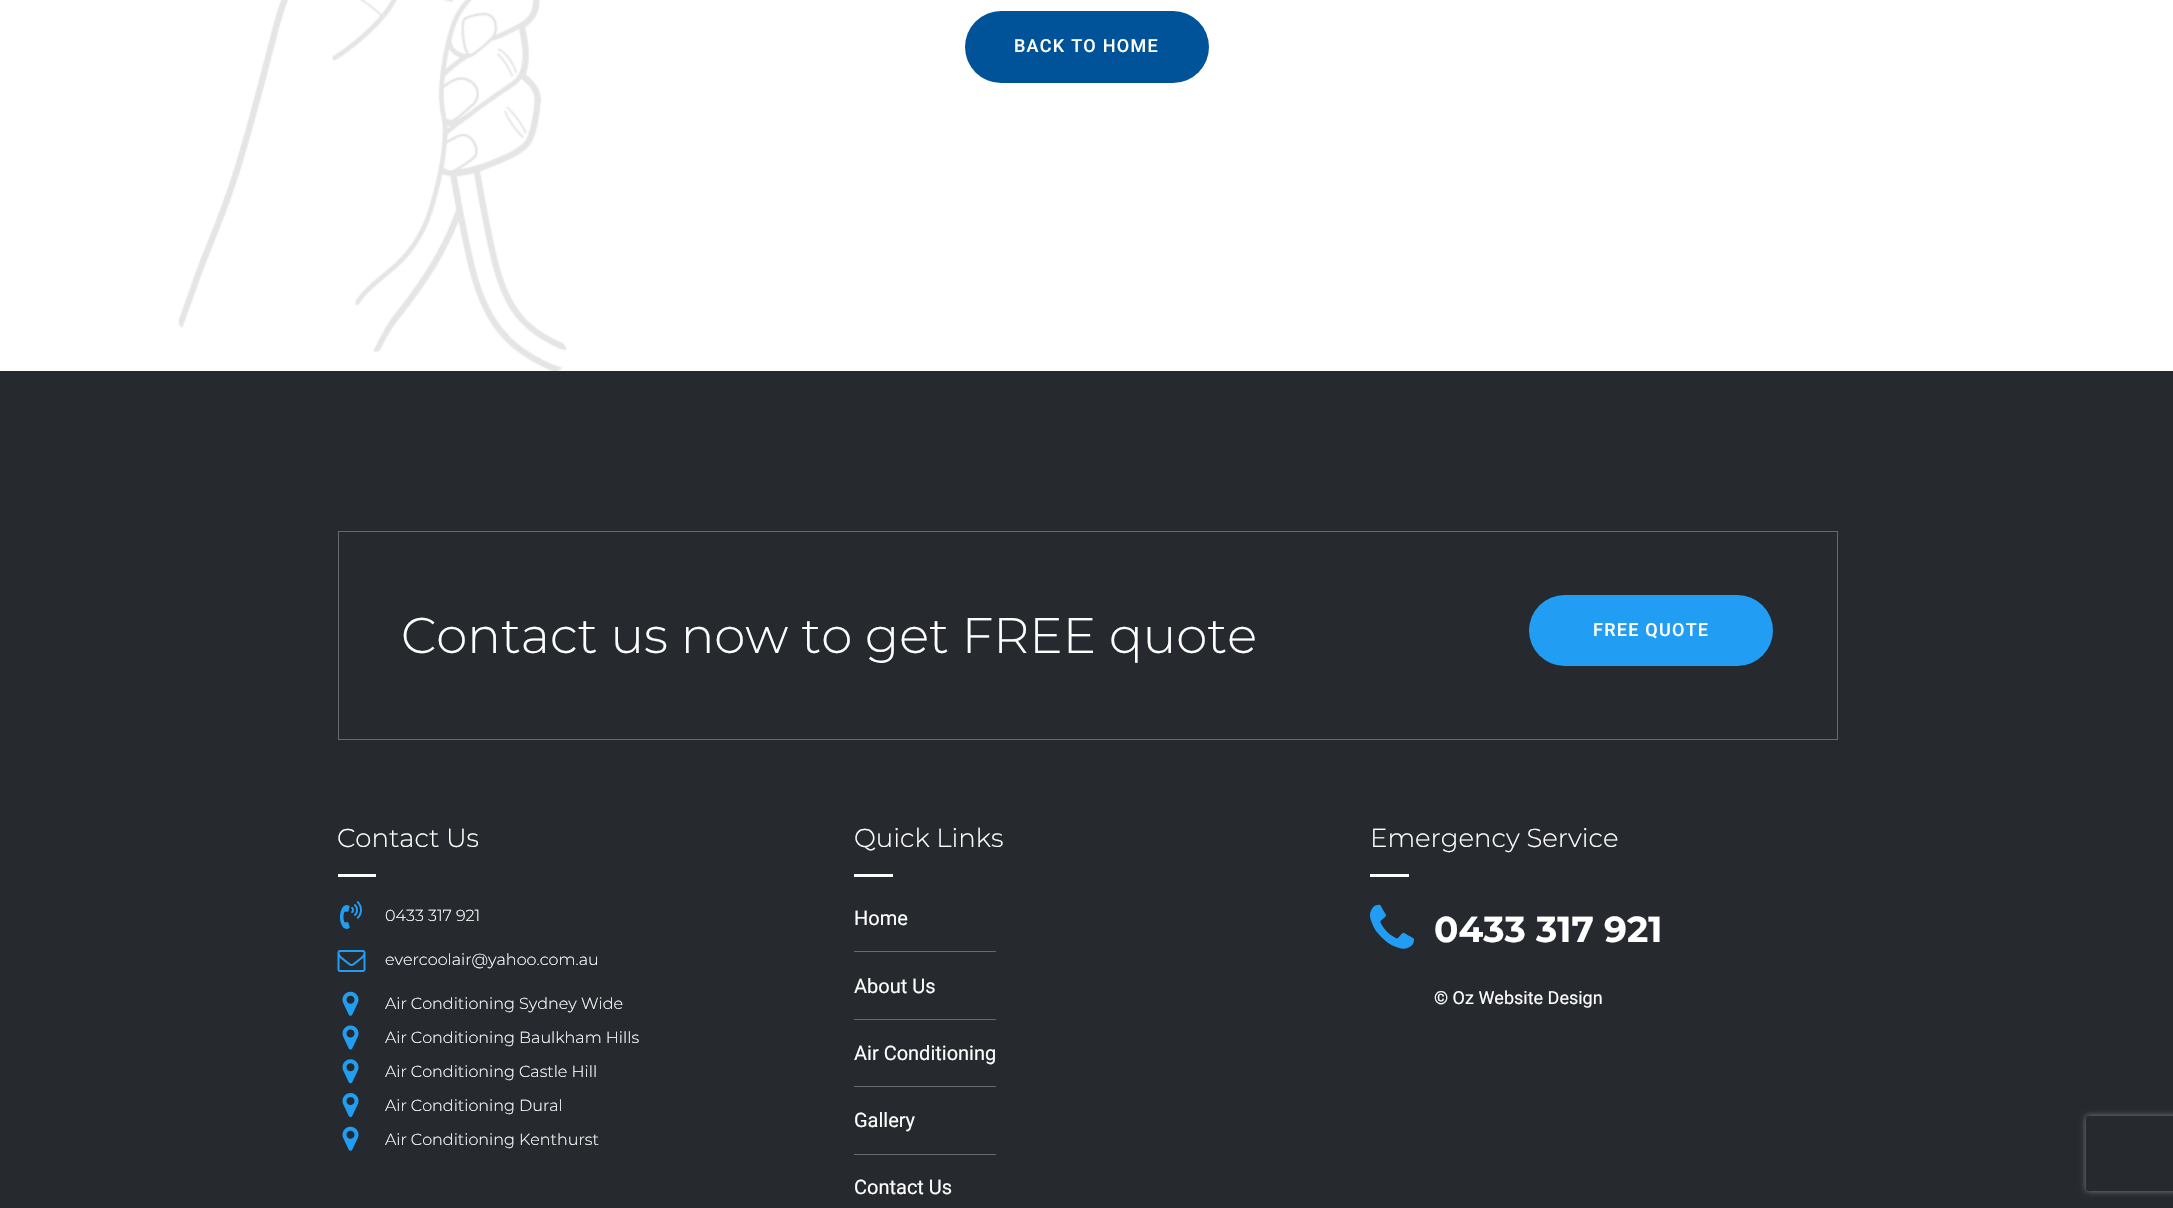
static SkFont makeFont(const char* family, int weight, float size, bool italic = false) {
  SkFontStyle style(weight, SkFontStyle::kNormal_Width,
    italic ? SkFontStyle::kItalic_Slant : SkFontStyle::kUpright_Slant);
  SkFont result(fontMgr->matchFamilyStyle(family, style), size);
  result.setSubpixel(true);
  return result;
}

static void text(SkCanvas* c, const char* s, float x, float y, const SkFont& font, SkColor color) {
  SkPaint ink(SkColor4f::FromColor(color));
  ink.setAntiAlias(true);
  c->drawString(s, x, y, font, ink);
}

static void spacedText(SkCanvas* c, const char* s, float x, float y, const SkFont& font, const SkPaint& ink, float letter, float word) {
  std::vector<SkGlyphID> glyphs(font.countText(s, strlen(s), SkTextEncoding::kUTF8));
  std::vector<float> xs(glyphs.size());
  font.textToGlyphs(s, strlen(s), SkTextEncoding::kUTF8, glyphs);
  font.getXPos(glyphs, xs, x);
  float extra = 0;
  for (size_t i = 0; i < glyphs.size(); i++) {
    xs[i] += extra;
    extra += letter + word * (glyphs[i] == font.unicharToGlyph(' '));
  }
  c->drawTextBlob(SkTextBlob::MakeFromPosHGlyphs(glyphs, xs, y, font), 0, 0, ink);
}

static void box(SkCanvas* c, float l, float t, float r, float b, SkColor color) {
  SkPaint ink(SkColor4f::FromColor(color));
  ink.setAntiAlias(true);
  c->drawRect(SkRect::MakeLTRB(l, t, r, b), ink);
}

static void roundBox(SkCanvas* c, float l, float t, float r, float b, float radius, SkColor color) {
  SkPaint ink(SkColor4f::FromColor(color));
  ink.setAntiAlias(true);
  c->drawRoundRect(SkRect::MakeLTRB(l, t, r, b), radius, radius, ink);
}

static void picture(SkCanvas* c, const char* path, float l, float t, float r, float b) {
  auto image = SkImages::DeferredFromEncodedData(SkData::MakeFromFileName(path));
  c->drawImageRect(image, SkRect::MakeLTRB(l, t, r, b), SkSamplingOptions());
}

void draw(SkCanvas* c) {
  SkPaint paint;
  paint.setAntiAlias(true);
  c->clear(0xffffffff);
  picture(c, "img_01.png", 178, 0, 567, 371);
  roundBox(c, 965, 11, 1209, 83, 36, 0xff005299);
  SkFont face1 = makeFont("Roboto", 500, 18);
  paint.setColor(0xffffffff);
  spacedText(c, "BACK TO HOME", 1014, 52, face1, paint, 1.25f, 0);
  box(c, 0, 371, 2173, 1208, 0xff26292e);
  paint.setStyle(SkPaint::kStroke_Style);
  paint.setStrokeWidth(1);
  paint.setColor(0xff67696d);
  c->drawRect(SkRect::MakeLTRB(338.5f, 531.5f, 1837.5f, 739.5f), paint);
  SkFont face2 = makeFont("Montserrat", 300, 50);
  text(c, "Contact us now to get FREE quote", 401, 653, face2, 0xffffffff);
  roundBox(c, 1529, 595, 1773, 666, 35.5f, 0xff219df3);
  paint.setStyle(SkPaint::kFill_Style);
  paint.setColor(0xffffffff);
  spacedText(c, "FREE QUOTE", 1593, 636, face1, paint, 1.25f, 0);
  SkFont face3 = makeFont("Montserrat", 300, 26);
  text(c, "Contact Us", 337, 847, face3, 0xffffffff);
  box(c, 338, 874, 376, 877, 0xffffffff);
  picture(c, "img_02.png", 340, 901, 362, 929);
  SkFont face4 = makeFont("Montserrat", 300, 16);
  text(c, "0433 317 921", 385, 921, face4, 0xffffffff);
  picture(c, "img_03.png", 337, 950, 366, 972);
  text(c, "evercoolair@yahoo.com.au", 385, 965, face4, 0xffffffff);
  picture(c, "img_04.png", 342, 991, 359, 1016);
  text(c, "Air Conditioning Sydney Wide", 385, 1009, face4, 0xffffffff);
  picture(c, "img_05.png", 342, 1025, 359, 1050);
  text(c, "Air Conditioning Baulkham Hills", 385, 1043, face4, 0xffffffff);
  picture(c, "img_06.png", 342, 1059, 359, 1084);
  text(c, "Air Conditioning Castle Hill", 385, 1077, face4, 0xffffffff);
  picture(c, "img_07.png", 342, 1093, 359, 1117);
  text(c, "Air Conditioning Dural", 385, 1111, face4, 0xffffffff);
  picture(c, "img_04.png", 342, 1126, 359, 1151);
  text(c, "Air Conditioning Kenthurst", 385, 1145, face4, 0xffffffff);
  text(c, "Quick Links", 854, 847, face3, 0xffffffff);
  box(c, 854, 874, 893, 877, 0xffffffff);
  box(c, 854, 951, 996, 952, 0xff67696d);
  SkFont face5 = makeFont("Roboto", 400, 20);
  text(c, "Home", 854, 925, face5, 0xffffffff);
  box(c, 854, 1019, 996, 1020, 0xff67696d);
  text(c, "About Us", 854, 993, face5, 0xffffffff);
  box(c, 854, 1086, 996, 1087, 0xff67696d);
  text(c, "Air Conditioning", 854, 1060, face5, 0xffffffff);
  box(c, 854, 1154, 996, 1155, 0xff67696d);
  text(c, "Gallery", 854, 1127, face5, 0xffffffff);
  text(c, "Contact Us", 854, 1194, face5, 0xffffffff);
  text(c, "Emergency Service", 1370, 847, face3, 0xffffffff);
  box(c, 1370, 874, 1409, 877, 0xffffffff);
  picture(c, "img_08.png", 1370, 904, 1414, 949);
  SkFont face6 = makeFont("Montserrat", 700, 36);
  text(c, "0433 317 921", 1434, 942, face6, 0xffffffff);
  SkFont face7 = makeFont("Roboto", 400, 18);
  text(c, "© Oz Website Design", 1434, 1004, face7, 0xffffffff);
  c->save();
  c->clipPath(SkPathBuilder(SkPathFillType::kEvenOdd).moveTo(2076, 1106).lineTo(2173, 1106).lineTo(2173, 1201).lineTo(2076, 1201).close().moveTo(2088.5f, 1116).lineTo(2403.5f, 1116).cubicTo(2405, 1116, 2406, 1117, 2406, 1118.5f).lineTo(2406, 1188.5f).cubicTo(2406, 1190, 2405, 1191, 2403.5f, 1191).lineTo(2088.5f, 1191).cubicTo(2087, 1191, 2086, 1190, 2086, 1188.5f).lineTo(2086, 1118.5f).cubicTo(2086, 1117, 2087, 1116, 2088.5f, 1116).close().detach(), true);
  paint.setColor(0xff808080);
  paint.setMaskFilter(SkMaskFilter::MakeBlur(kNormal_SkBlurStyle, 3));
  c->drawRoundRect(SkRect::MakeLTRB(2086, 1116, 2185, 1191), 2.5f, 2.5f, paint);
  paint.setMaskFilter(nullptr);
  c->restore();
}
